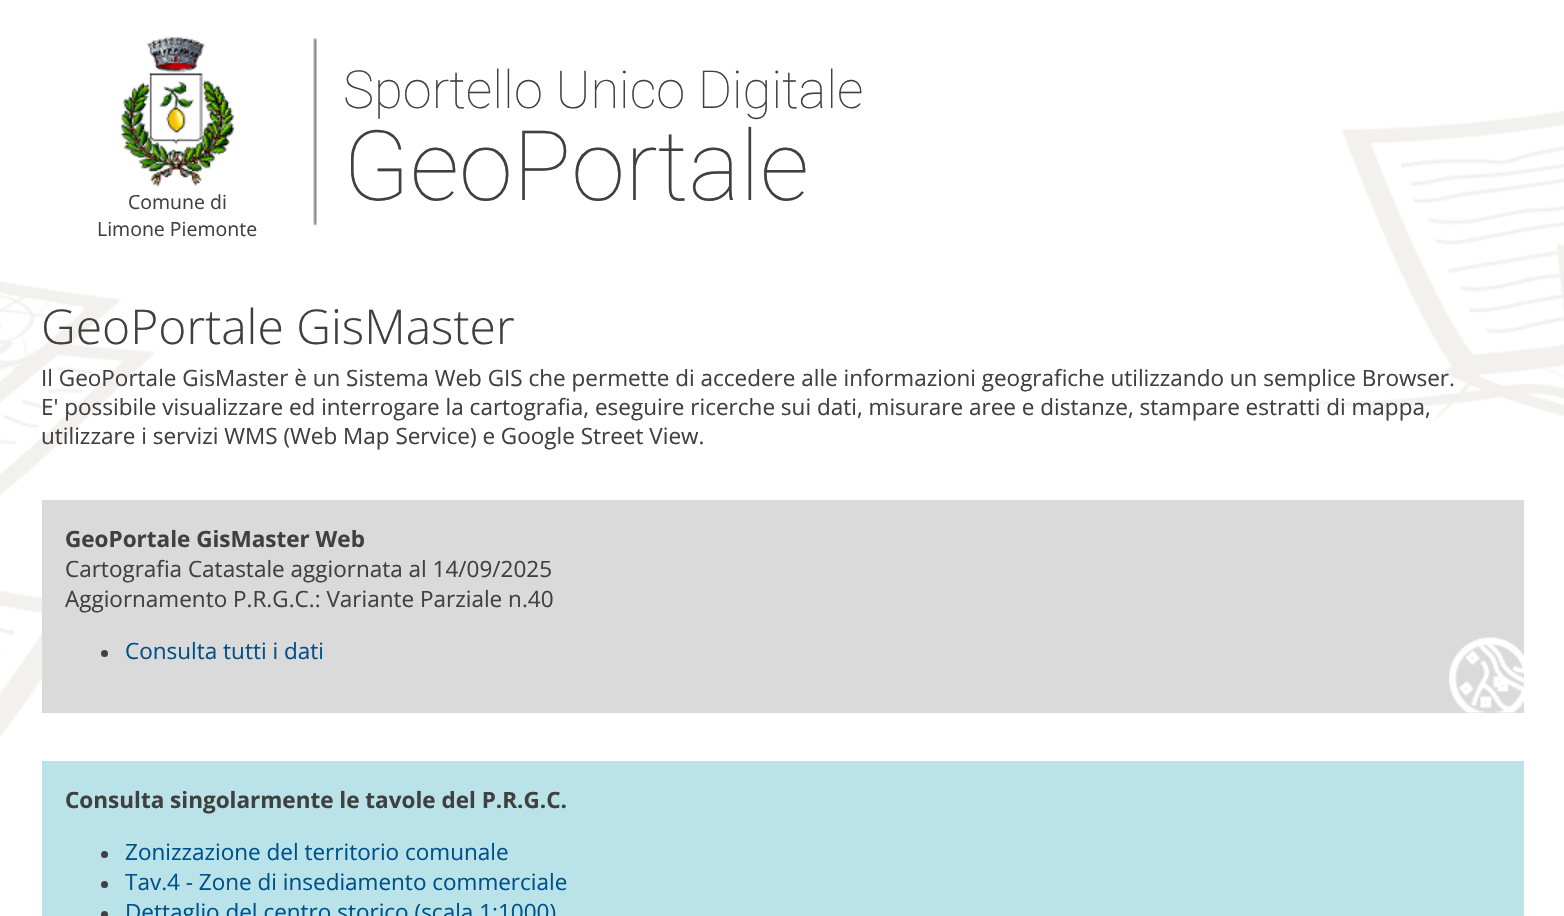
static SkFont makeFont(const char* family, int weight, float size, bool italic = false) {
  SkFontStyle style(weight, SkFontStyle::kNormal_Width,
    italic ? SkFontStyle::kItalic_Slant : SkFontStyle::kUpright_Slant);
  SkFont result(fontMgr->matchFamilyStyle(family, style), size);
  result.setSubpixel(true);
  return result;
}

static void text(SkCanvas* c, const char* s, float x, float y, const SkFont& font, SkColor color) {
  SkPaint ink(SkColor4f::FromColor(color));
  ink.setAntiAlias(true);
  c->drawString(s, x, y, font, ink);
}

static void box(SkCanvas* c, float l, float t, float r, float b, SkColor color) {
  SkPaint ink(SkColor4f::FromColor(color));
  ink.setAntiAlias(true);
  c->drawRect(SkRect::MakeLTRB(l, t, r, b), ink);
}

static void picture(SkCanvas* c, const char* path, float l, float t, float r, float b) {
  auto image = SkImages::DeferredFromEncodedData(SkData::MakeFromFileName(path));
  c->drawImageRect(image, SkRect::MakeLTRB(l, t, r, b), SkSamplingOptions());
}

void draw(SkCanvas* c) {
  SkPaint paint;
  paint.setAntiAlias(true);
  c->clear(0xffffffff);
  picture(c, "img_01.png", 0, 111, 1564, 737);
  picture(c, "img_02.png", 313, 37, 317, 226);
  SkFont face1 = makeFont("Heebo", 100, 52.5f);
  text(c, "Sportello Unico Digitale", 343, 108, face1, 0xff404040);
  SkFont face2 = makeFont("Heebo", 100, 97.5f);
  text(c, "GeoPortale", 343, 200, face2, 0xff404040);
  picture(c, "img_03.png", 120, 37, 234, 187);
  SkFont face3 = makeFont("Open Sans", 400, 19.5f);
  text(c, "Comune di", 128, 209, face3, 0xff404040);
  text(c, "Limone Piemonte", 97, 236, face3, 0xff404040);
  SkFont face4 = makeFont("Open Sans", 300, 48);
  text(c, "GeoPortale GisMaster", 41, 344, face4, 0xff404040);
  SkFont face5 = makeFont("Open Sans", 400, 22.5f);
  text(c, "Il GeoPortale GisMaster è un Sistema Web GIS che permette di accedere alle informazioni geografiche utilizzando un semplice Browser.", 41, 386, face5, 0xff404040);
  text(c, "E' possibile visualizzare ed interrogare la cartografia, eseguire ricerche sui dati, misurare aree e distanze, stampare estratti di mappa,", 41, 415, face5, 0xff404040);
  text(c, "utilizzare i servizi WMS (Web Map Service) e Google Street View.", 41, 444, face5, 0xff404040);
  box(c, 42, 500, 1524, 713, 0xffdadada);
  SkFont face6 = makeFont("Open Sans", 700, 22.5f);
  text(c, "GeoPortale GisMaster Web", 65, 547, face6, 0xff404040);
  text(c, "Cartografia Catastale aggiornata al 14/09/2025", 65, 577, face5, 0xff404040);
  text(c, "Aggiornamento P.R.G.C.: Variante Parziale n.40", 65, 607, face5, 0xff404040);
  paint.setColor(0xff404040);
  c->drawCircle(104.5f, 653.5f, 3.5f, paint);
  text(c, "Consulta tutti i dati", 125, 659, face5, 0xff005189);
  picture(c, "img_04.png", 1449, 637, 1524, 713);
  box(c, 42, 761, 1524, 916, 0xffb9e3e8);
  text(c, "Consulta singolarmente le tavole del P.R.G.C.", 65, 808, face6, 0xff404040);
  c->drawCircle(104.5f, 854.5f, 3.5f, paint);
  text(c, "Zonizzazione del territorio comunale", 125, 860, face5, 0xff005189);
  c->drawCircle(104.5f, 884.5f, 3.5f, paint);
  text(c, "Tav.4 - Zone di insediamento commerciale", 125, 890, face5, 0xff005189);
  c->drawCircle(104.5f, 914.5f, 3.5f, paint);
  text(c, "Dettaglio del centro storico (scala 1:1000)", 125, 920, face5, 0xff005189);
}
